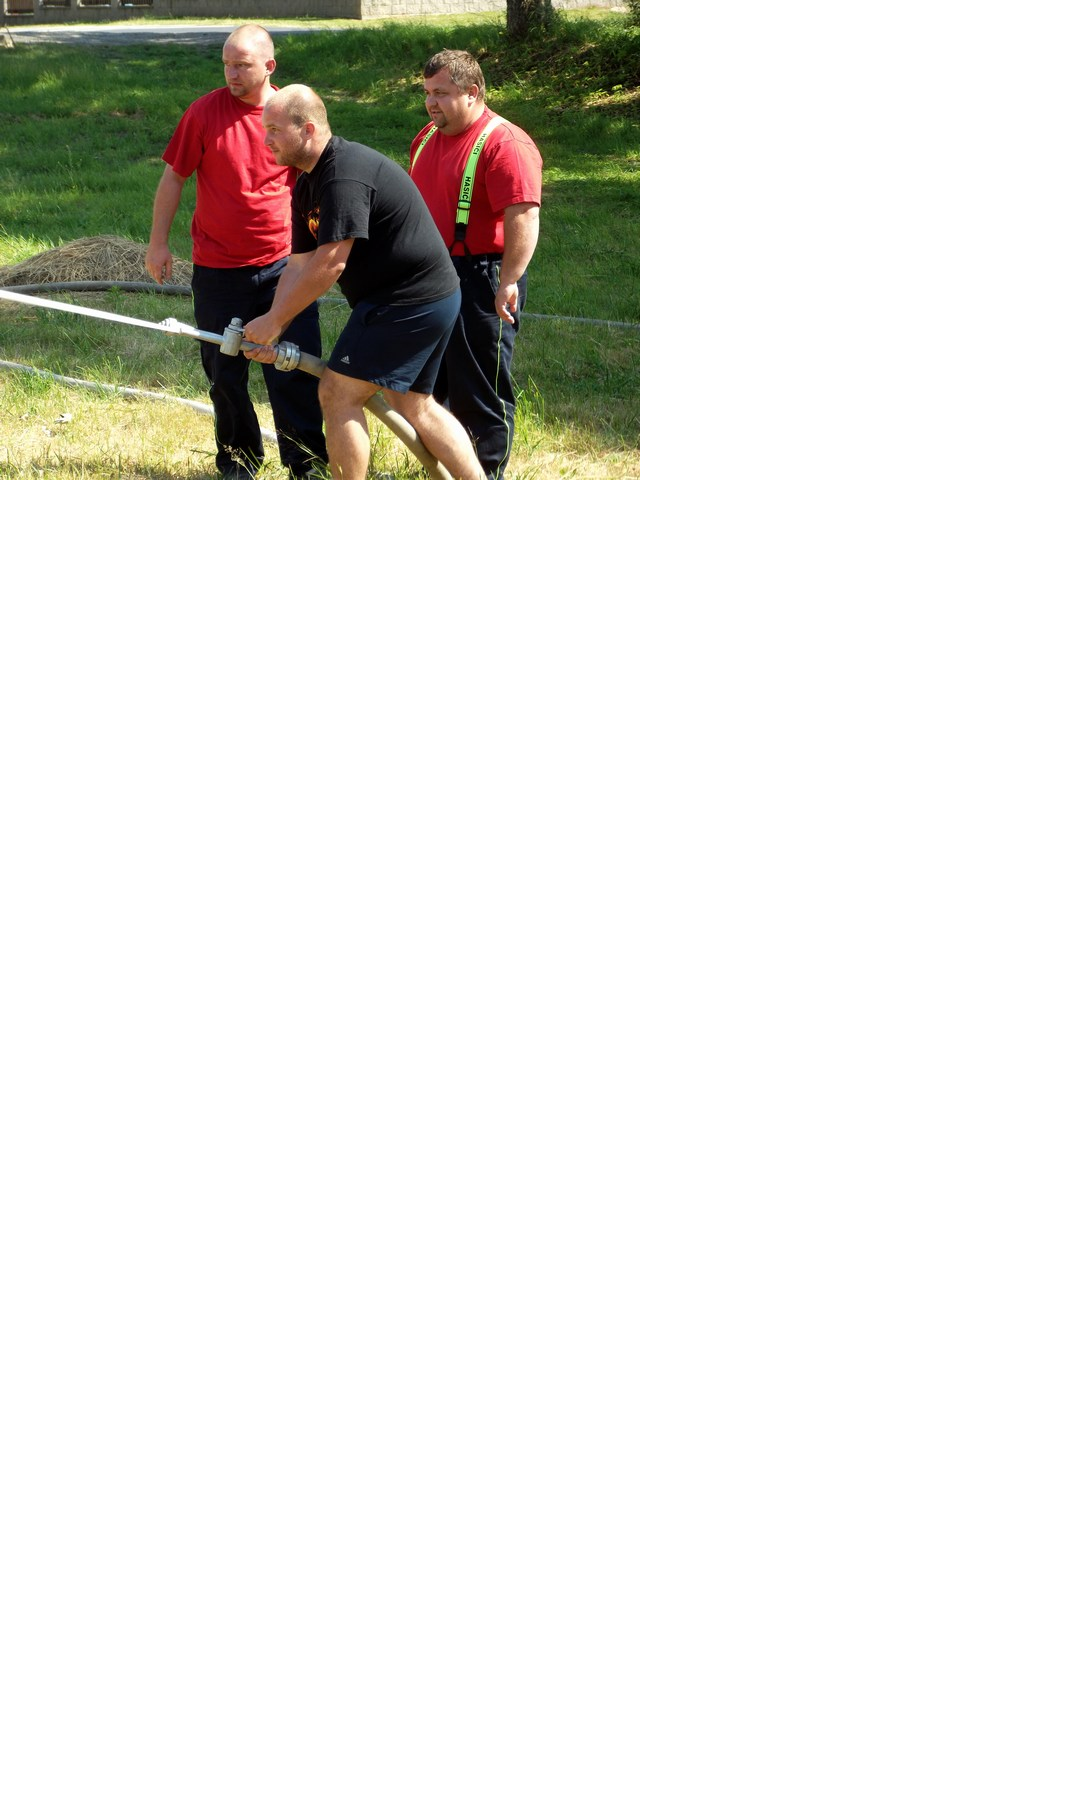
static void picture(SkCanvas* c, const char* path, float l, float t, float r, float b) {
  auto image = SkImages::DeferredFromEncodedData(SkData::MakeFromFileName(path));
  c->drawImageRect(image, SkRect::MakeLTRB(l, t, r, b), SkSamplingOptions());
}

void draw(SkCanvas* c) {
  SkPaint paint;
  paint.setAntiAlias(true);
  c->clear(0xffffffff);
  picture(c, "img_01.png", 0, 0, 640, 480);
}
